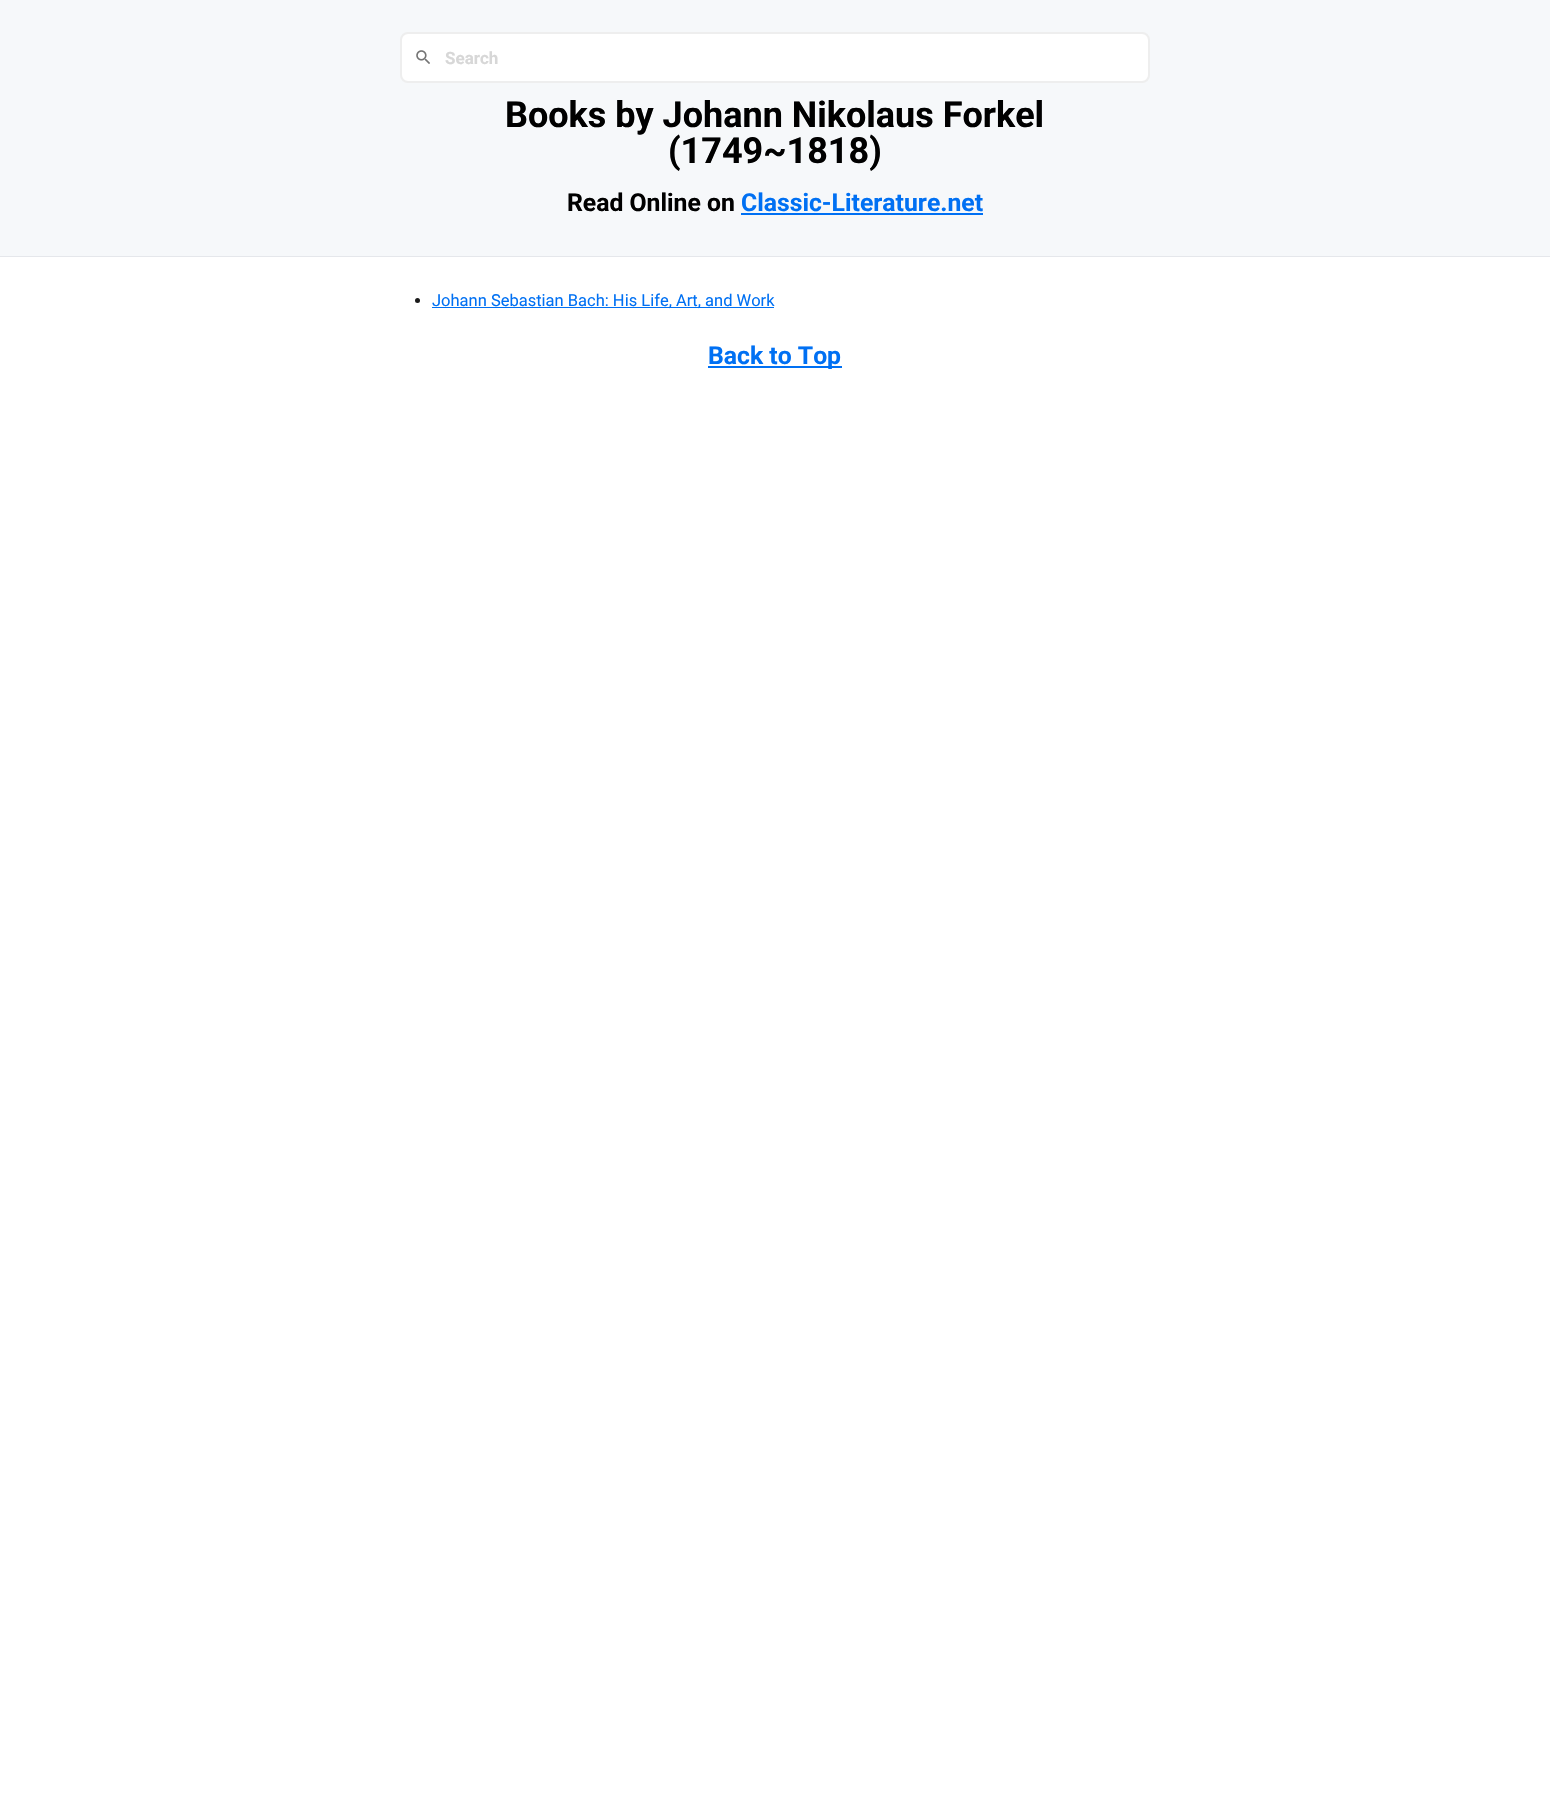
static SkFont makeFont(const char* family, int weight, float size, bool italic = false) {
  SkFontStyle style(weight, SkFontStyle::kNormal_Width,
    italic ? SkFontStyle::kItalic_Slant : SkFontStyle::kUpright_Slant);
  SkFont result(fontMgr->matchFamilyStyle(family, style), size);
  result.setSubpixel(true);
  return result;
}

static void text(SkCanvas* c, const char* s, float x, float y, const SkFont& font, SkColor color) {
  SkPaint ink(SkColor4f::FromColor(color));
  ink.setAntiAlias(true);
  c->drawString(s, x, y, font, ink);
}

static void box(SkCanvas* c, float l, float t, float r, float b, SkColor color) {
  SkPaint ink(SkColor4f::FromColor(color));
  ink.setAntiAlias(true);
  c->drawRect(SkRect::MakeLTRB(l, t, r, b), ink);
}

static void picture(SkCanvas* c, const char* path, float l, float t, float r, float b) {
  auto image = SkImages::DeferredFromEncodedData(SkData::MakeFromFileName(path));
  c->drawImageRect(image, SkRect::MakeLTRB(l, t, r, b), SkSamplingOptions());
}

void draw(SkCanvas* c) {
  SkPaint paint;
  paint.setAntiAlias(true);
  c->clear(0xffffffff);
  box(c, 0, 0, 1550, 256, 0xfff6f8fa);
  box(c, 0, 256, 1550, 257, 0xffe5e7eb);
  paint.setColor(0xffffffff);
  c->drawRoundRect(SkRect::MakeLTRB(401, 33, 1149, 82), 7, 7, paint);
  paint.setStyle(SkPaint::kStroke_Style);
  paint.setStrokeWidth(2);
  paint.setColor(0xffeeeeee);
  c->drawRoundRect(SkRect::MakeLTRB(401, 33, 1149, 82), 7, 7, paint);
  picture(c, "img_01.png", 416, 50, 430, 64);
  SkFont face1 = makeFont("Roboto", 700, 17);
  text(c, "Search", 445, 64, face1, 0xffd7d7d7);
  SkFont face2 = makeFont("Roboto", 700, 36);
  text(c, "Books by Johann Nikolaus Forkel", 505, 127, face2, 0xff000000);
  text(c, "(1749~1818)", 668, 163, face2, 0xff000000);
  SkFont face3 = makeFont("Roboto", 700, 24.75f);
  text(c, "Read Online on", 567, 211, face3, 0xff000000);
  text(c, "Classic-Literature.net", 741, 211, face3, 0xff0070f3);
  box(c, 741, 213, 983, 215, 0xff0070f3);
  paint.setStyle(SkPaint::kFill_Style);
  paint.setColor(0xff1a1a1a);
  c->drawCircle(417.5f, 300.5f, 2.5f, paint);
  box(c, 432, 307, 774, 308, 0xff0070f3);
  SkFont face4 = makeFont("Roboto", 400, 16.5f);
  text(c, "Johann Sebastian Bach: His Life, Art, and Work", 432, 306, face4, 0xff0070f3);
  box(c, 708, 366, 842, 368, 0xff0070f3);
  text(c, "Back to Top", 708, 364, face3, 0xff0070f3);
}
